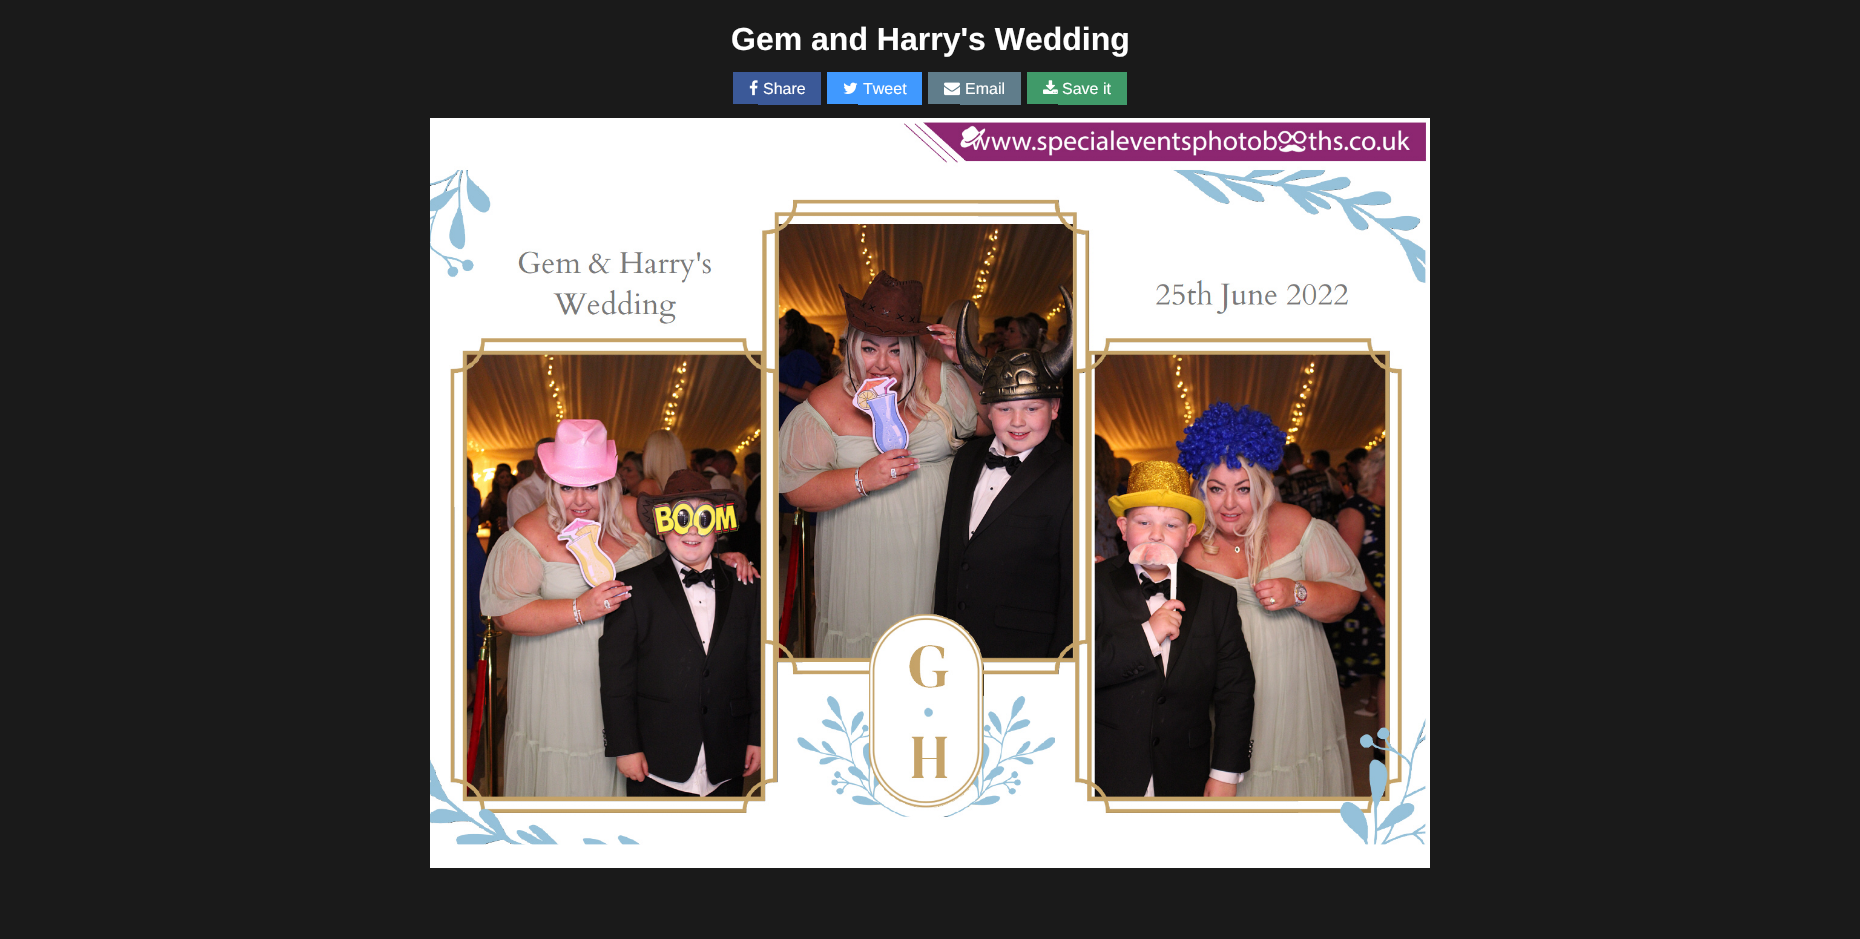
static SkFont makeFont(const char* family, int weight, float size, bool italic = false) {
  SkFontStyle style(weight, SkFontStyle::kNormal_Width,
    italic ? SkFontStyle::kItalic_Slant : SkFontStyle::kUpright_Slant);
  SkFont result(fontMgr->matchFamilyStyle(family, style), size);
  result.setSubpixel(true);
  return result;
}

static void text(SkCanvas* c, const char* s, float x, float y, const SkFont& font, SkColor color) {
  SkPaint ink(SkColor4f::FromColor(color));
  ink.setAntiAlias(true);
  c->drawString(s, x, y, font, ink);
}

static void box(SkCanvas* c, float l, float t, float r, float b, SkColor color) {
  SkPaint ink(SkColor4f::FromColor(color));
  ink.setAntiAlias(true);
  c->drawRect(SkRect::MakeLTRB(l, t, r, b), ink);
}

static void picture(SkCanvas* c, const char* path, float l, float t, float r, float b) {
  auto image = SkImages::DeferredFromEncodedData(SkData::MakeFromFileName(path));
  c->drawImageRect(image, SkRect::MakeLTRB(l, t, r, b), SkSamplingOptions());
}

void draw(SkCanvas* c) {
  SkPaint paint;
  paint.setAntiAlias(true);
  c->clear(0xff1a1a1a);
  SkFont face1 = makeFont("Liberation Sans", 700, 32);
  text(c, "Gem and Harry's Wedding", 731, 50, face1, 0xffffffff);
  box(c, 733, 72, 758, 104, 0xff3b5998);
  box(c, 758, 72, 821, 105, 0xff3b5998);
  picture(c, "img_01.png", 749, 80, 758, 96);
  SkFont face2 = makeFont("Liberation Sans", 400, 16);
  text(c, "Share", 763, 94, face2, 0xffffffff);
  box(c, 827, 72, 858, 104, 0xff4099ff);
  box(c, 858, 72, 922, 105, 0xff4099ff);
  picture(c, "img_02.png", 843, 82, 858, 94);
  text(c, "Tweet", 863, 94, face2, 0xffffffff);
  box(c, 928, 72, 960, 104, 0xff607d8b);
  box(c, 960, 72, 1021, 105, 0xff607d8b);
  picture(c, "img_03.png", 944, 82, 960, 96);
  text(c, "Email", 965, 94, face2, 0xffffffff);
  box(c, 1027, 72, 1058, 104, 0xff409a69);
  box(c, 1058, 72, 1127, 105, 0xff409a69);
  picture(c, "img_04.png", 1043, 80, 1058, 94);
  text(c, "Save it", 1062, 94, face2, 0xffffffff);
  picture(c, "img_05.png", 430, 118, 1430, 868);
}
